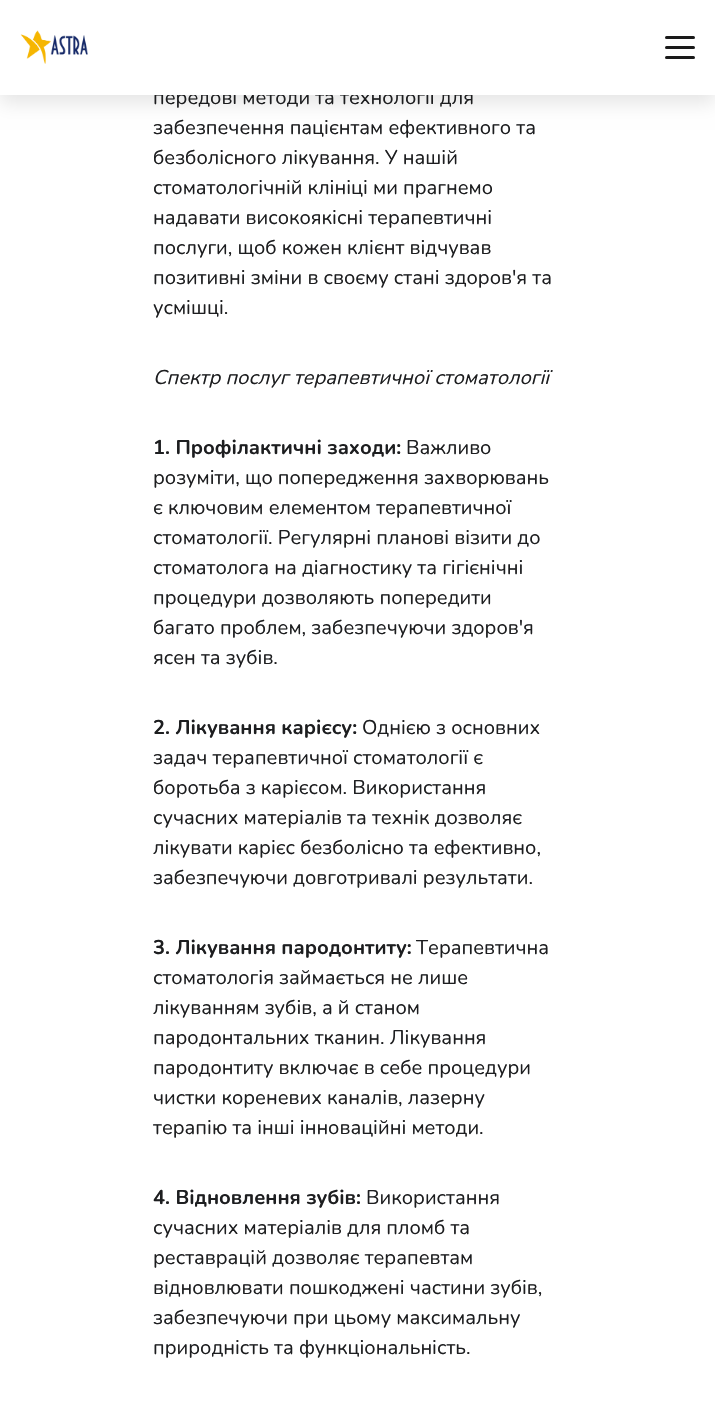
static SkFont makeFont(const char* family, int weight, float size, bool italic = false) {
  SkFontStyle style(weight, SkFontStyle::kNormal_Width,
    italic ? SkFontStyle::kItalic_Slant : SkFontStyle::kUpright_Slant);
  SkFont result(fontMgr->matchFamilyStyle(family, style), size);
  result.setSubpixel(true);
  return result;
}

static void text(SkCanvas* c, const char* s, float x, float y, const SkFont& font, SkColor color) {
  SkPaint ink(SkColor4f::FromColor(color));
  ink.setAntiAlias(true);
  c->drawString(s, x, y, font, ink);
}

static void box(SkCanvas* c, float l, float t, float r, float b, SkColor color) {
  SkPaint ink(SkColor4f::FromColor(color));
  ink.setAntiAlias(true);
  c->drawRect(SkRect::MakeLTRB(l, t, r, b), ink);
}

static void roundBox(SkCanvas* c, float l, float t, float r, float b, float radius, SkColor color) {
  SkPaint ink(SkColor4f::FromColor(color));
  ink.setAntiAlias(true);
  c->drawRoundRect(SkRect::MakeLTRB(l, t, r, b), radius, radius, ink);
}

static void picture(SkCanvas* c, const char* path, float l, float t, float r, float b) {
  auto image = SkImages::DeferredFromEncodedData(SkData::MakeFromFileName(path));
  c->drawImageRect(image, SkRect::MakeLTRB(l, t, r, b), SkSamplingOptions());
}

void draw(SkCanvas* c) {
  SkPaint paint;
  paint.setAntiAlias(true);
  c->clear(0xffffffff);
  paint.setColor(0x1a000000);
  paint.setMaskFilter(SkMaskFilter::MakeBlur(kNormal_SkBlurStyle, 9));
  c->drawRect(SkRect::MakeLTRB(0, 8, 715, 103), paint);
  paint.setMaskFilter(nullptr);
  SkFont face1 = makeFont("Nunito", 200, 20);
  text(c, "передові методи та технології для", 153, 104, face1, 0xff1d1e20);
  box(c, 0, 0, 715, 95, 0xffffffff);
  picture(c, "img_01.png", 20, 30, 88, 64);
  roundBox(c, 665, 36, 695, 39, 1.5f, 0xff1a1a1a);
  roundBox(c, 665, 46, 695, 49, 1.5f, 0xff1a1a1a);
  roundBox(c, 665, 56, 695, 59, 1.5f, 0xff1a1a1a);
  text(c, "забезпечення пацієнтам ефективного та", 153, 134, face1, 0xff1d1e20);
  text(c, "безболісного лікування. У нашій", 153, 164, face1, 0xff1d1e20);
  text(c, "стоматологічній клініці ми прагнемо", 153, 194, face1, 0xff1d1e20);
  text(c, "надавати високоякісні терапевтичні", 153, 224, face1, 0xff1d1e20);
  text(c, "послуги, щоб кожен клієнт відчував", 153, 254, face1, 0xff1d1e20);
  text(c, "позитивні зміни в своєму стані здоров'я та", 153, 284, face1, 0xff1d1e20);
  text(c, "усмішці.", 153, 314, face1, 0xff1d1e20);
  SkFont face2 = makeFont("Nunito", 200, 20, true);
  text(c, "Спектр послуг терапевтичної стоматології", 153, 384, face2, 0xff1d1e20);
  SkFont face3 = makeFont("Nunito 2", 200, 20);
  text(c, "1. Профілактичні заходи:", 153, 454, face3, 0xff1d1e20);
  text(c, "Важливо", 406, 454, face1, 0xff1d1e20);
  text(c, "розуміти, що попередження захворювань", 153, 484, face1, 0xff1d1e20);
  text(c, "є ключовим елементом терапевтичної", 153, 514, face1, 0xff1d1e20);
  text(c, "стоматології. Регулярні планові візити до", 153, 544, face1, 0xff1d1e20);
  text(c, "стоматолога на діагностику та гігієнічні", 153, 574, face1, 0xff1d1e20);
  text(c, "процедури дозволяють попередити", 153, 604, face1, 0xff1d1e20);
  text(c, "багато проблем, забезпечуючи здоров'я", 153, 634, face1, 0xff1d1e20);
  text(c, "ясен та зубів.", 153, 664, face1, 0xff1d1e20);
  text(c, "2. Лікування карієсу:", 153, 734, face3, 0xff1d1e20);
  text(c, "Однією з основних", 362, 734, face1, 0xff1d1e20);
  text(c, "задач терапевтичної стоматології є", 153, 764, face1, 0xff1d1e20);
  text(c, "боротьба з карієсом. Використання", 153, 794, face1, 0xff1d1e20);
  text(c, "сучасних матеріалів та технік дозволяє", 153, 824, face1, 0xff1d1e20);
  text(c, "лікувати карієс безболісно та ефективно,", 153, 854, face1, 0xff1d1e20);
  text(c, "забезпечуючи довготривалі результати.", 153, 884, face1, 0xff1d1e20);
  text(c, "3. Лікування пародонтиту:", 153, 954, face3, 0xff1d1e20);
  text(c, "Терапевтична", 416, 954, face1, 0xff1d1e20);
  text(c, "стоматологія займається не лише", 153, 984, face1, 0xff1d1e20);
  text(c, "лікуванням зубів, а й станом", 153, 1014, face1, 0xff1d1e20);
  text(c, "пародонтальних тканин. Лікування", 153, 1044, face1, 0xff1d1e20);
  text(c, "пародонтиту включає в себе процедури", 153, 1074, face1, 0xff1d1e20);
  text(c, "чистки кореневих каналів, лазерну", 153, 1104, face1, 0xff1d1e20);
  text(c, "терапію та інші інноваційні методи.", 153, 1134, face1, 0xff1d1e20);
  text(c, "4. Відновлення зубів:", 153, 1204, face3, 0xff1d1e20);
  text(c, "Використання", 366, 1204, face1, 0xff1d1e20);
  text(c, "сучасних матеріалів для пломб та", 153, 1234, face1, 0xff1d1e20);
  text(c, "реставрацій дозволяє терапевтам", 153, 1264, face1, 0xff1d1e20);
  text(c, "відновлювати пошкоджені частини зубів,", 153, 1294, face1, 0xff1d1e20);
  text(c, "забезпечуючи при цьому максимальну", 153, 1324, face1, 0xff1d1e20);
  text(c, "природність та функціональність.", 153, 1354, face1, 0xff1d1e20);
}
